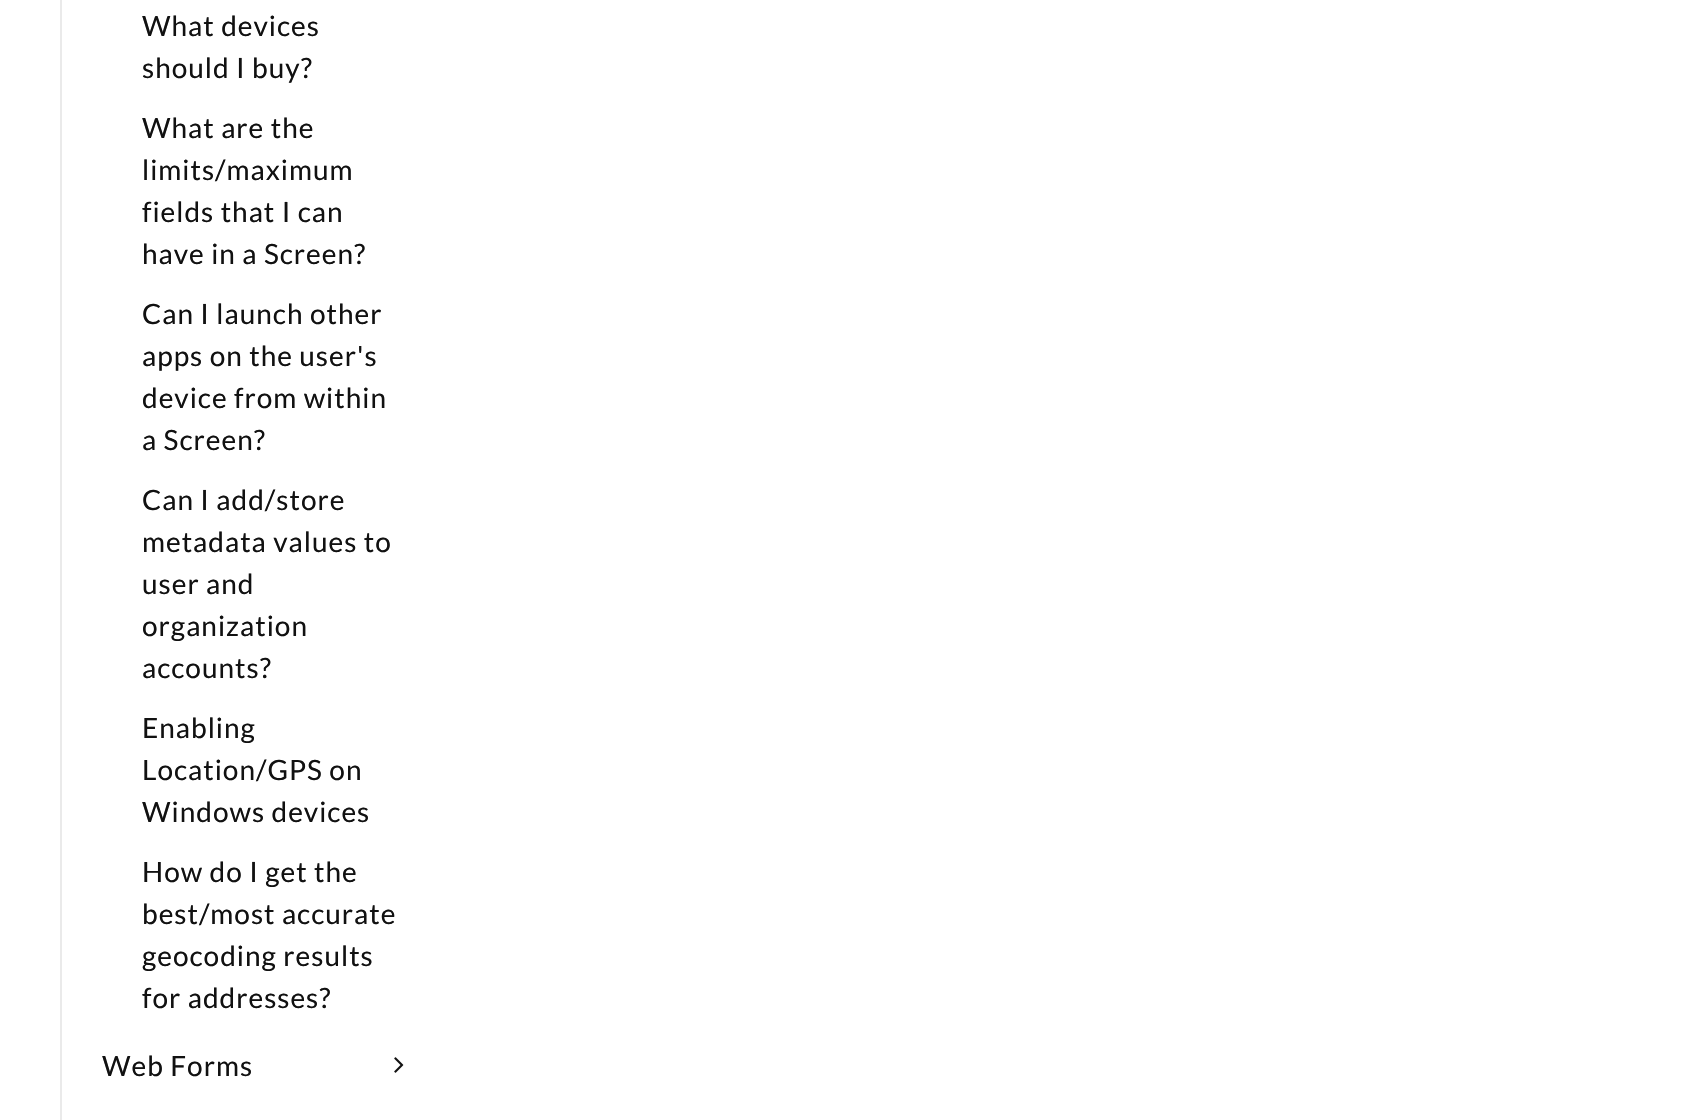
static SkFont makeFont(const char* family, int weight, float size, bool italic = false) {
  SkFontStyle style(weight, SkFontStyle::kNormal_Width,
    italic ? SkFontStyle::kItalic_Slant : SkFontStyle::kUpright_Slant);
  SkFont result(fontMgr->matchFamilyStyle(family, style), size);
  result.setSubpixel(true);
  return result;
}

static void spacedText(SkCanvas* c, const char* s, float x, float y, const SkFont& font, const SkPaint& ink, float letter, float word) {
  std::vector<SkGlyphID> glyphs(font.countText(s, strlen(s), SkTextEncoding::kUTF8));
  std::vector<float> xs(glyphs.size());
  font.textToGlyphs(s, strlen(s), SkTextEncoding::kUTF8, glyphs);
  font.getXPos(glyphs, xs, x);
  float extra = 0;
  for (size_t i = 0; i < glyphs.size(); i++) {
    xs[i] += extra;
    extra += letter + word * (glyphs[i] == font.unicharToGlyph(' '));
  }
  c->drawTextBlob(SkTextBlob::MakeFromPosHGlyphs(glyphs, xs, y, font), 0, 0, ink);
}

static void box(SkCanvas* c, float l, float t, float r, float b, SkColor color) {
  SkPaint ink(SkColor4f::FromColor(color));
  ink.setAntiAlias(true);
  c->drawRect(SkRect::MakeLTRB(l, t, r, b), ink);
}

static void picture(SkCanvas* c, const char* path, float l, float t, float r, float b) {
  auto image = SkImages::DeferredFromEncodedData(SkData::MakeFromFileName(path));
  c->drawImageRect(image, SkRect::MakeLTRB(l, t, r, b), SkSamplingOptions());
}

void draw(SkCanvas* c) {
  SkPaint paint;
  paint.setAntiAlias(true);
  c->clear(0xffffffff);
  box(c, 60, 0, 62, 1120, 0xffeaeaea);
  SkFont face1 = makeFont("Lato", 400, 28);
  paint.setColor(0xff111111);
  spacedText(c, "What devices", 142, 36, face1, paint, 1, 0);
  spacedText(c, "should I buy?", 142, 78, face1, paint, 1, 0);
  spacedText(c, "What are the", 142, 138, face1, paint, 1, 0);
  spacedText(c, "limits/maximum", 142, 180, face1, paint, 1, 0);
  spacedText(c, "fields that I can", 142, 222, face1, paint, 1, 0);
  spacedText(c, "have in a Screen?", 142, 264, face1, paint, 1, 0);
  spacedText(c, "Can I launch other", 142, 324, face1, paint, 1, 0);
  spacedText(c, "apps on the user's", 142, 366, face1, paint, 1, 0);
  spacedText(c, "device from within", 142, 408, face1, paint, 1, 0);
  spacedText(c, "a Screen?", 142, 450, face1, paint, 1, 0);
  spacedText(c, "Can I add/store", 142, 510, face1, paint, 1, 0);
  spacedText(c, "metadata values to", 142, 552, face1, paint, 1, 0);
  spacedText(c, "user and", 142, 594, face1, paint, 1, 0);
  spacedText(c, "organization", 142, 636, face1, paint, 1, 0);
  spacedText(c, "accounts?", 142, 678, face1, paint, 1, 0);
  spacedText(c, "Enabling", 142, 738, face1, paint, 1, 0);
  spacedText(c, "Location/GPS on", 142, 780, face1, paint, 1, 0);
  spacedText(c, "Windows devices", 142, 822, face1, paint, 1, 0);
  spacedText(c, "How do I get the", 142, 882, face1, paint, 1, 0);
  spacedText(c, "best/most accurate", 142, 924, face1, paint, 1, 0);
  spacedText(c, "geocoding results", 142, 966, face1, paint, 1, 0);
  spacedText(c, "for addresses?", 142, 1008, face1, paint, 1, 0);
  spacedText(c, "Web Forms", 102, 1076, face1, paint, 1, 0);
  picture(c, "img_01.png", 394, 1057, 404, 1073);
}
